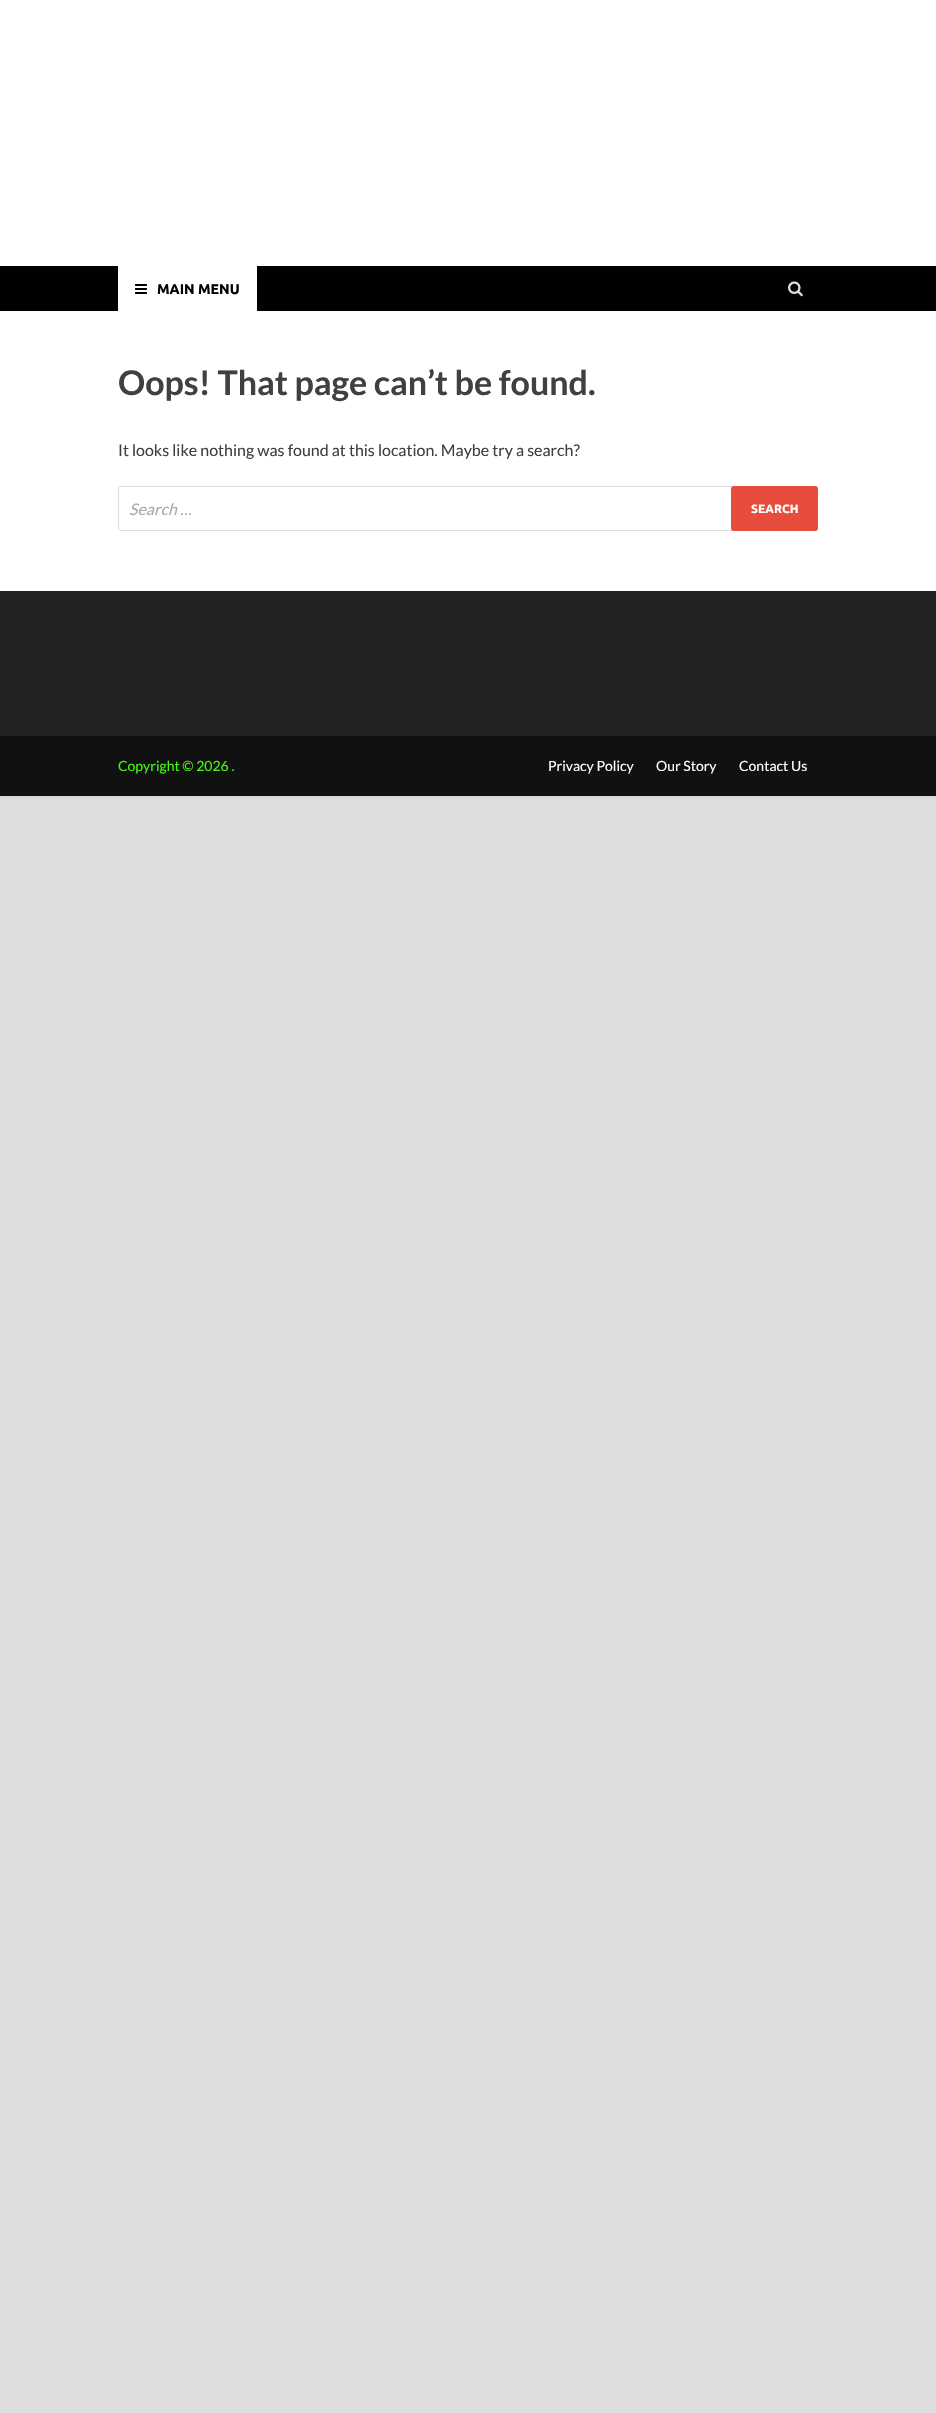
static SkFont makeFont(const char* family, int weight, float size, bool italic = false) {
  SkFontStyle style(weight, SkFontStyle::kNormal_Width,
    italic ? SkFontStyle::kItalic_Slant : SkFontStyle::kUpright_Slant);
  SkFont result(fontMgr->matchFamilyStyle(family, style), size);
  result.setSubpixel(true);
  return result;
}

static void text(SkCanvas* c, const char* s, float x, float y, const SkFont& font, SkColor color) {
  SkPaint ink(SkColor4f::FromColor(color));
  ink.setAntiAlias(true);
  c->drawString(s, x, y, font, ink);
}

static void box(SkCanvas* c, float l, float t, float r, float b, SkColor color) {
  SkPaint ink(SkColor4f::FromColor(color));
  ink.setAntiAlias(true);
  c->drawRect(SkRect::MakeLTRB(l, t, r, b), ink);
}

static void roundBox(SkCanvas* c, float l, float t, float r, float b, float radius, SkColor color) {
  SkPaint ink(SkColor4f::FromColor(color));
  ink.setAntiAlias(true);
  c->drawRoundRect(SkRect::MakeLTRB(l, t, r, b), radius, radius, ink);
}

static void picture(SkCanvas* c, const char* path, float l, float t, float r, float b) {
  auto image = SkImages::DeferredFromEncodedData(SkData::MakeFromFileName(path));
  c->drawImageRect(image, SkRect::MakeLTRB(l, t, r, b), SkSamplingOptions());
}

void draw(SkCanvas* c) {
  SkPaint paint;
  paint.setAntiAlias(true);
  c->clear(0xffdddddd);
  paint.setColor(0xffbbbbbb);
  paint.setMaskFilter(SkMaskFilter::MakeBlur(kNormal_SkBlurStyle, 1));
  c->drawRect(SkRect::MakeLTRB(0, 0, 936, 796), paint);
  paint.setMaskFilter(nullptr);
  box(c, 0, 0, 936, 591, 0xffffffff);
  box(c, 0, 266, 936, 311, 0xff000000);
  box(c, 118, 266, 257, 311, 0xffffffff);
  picture(c, "img_01.png", 135, 284, 147, 294);
  SkFont face1 = makeFont("Ubuntu", 700, 14);
  text(c, "MAIN MENU", 157, 294, face1, 0xff000000);
  picture(c, "img_02.png", 788, 281, 803, 297);
  SkFont face2 = makeFont("Lato", 700, 34);
  text(c, "Oops! That page can’t be found.", 118, 395, face2, 0xff404040);
  SkFont face3 = makeFont("Lato", 400, 16);
  text(c, "It looks like nothing was found at this location. Maybe try a search?", 118, 456, face3, 0xff404040);
  paint.setStyle(SkPaint::kStroke_Style);
  paint.setStrokeWidth(1);
  paint.setColor(0xffdddddd);
  c->drawRoundRect(SkRect::MakeLTRB(118.5f, 486.5f, 817.5f, 530.5f), 2.5f, 2.5f, paint);
  SkFont face4 = makeFont("Lato", 400, 16, true);
  text(c, "Search …", 129, 515, face4, 0xffaaaaaa);
  roundBox(c, 731, 486, 818, 531, 3, 0xffe74c3c);
  SkFont face5 = makeFont("Ubuntu", 700, 12);
  text(c, "SEARCH", 751, 513, face5, 0xffffffff);
  box(c, 0, 591, 936, 736, 0xff222222);
  box(c, 0, 736, 936, 796, 0xff111111);
  SkFont face6 = makeFont("Lato", 400, 14);
  text(c, "Copyright © 2026 .", 118, 771, face6, 0xff46f810);
  text(c, "Privacy Policy", 548, 771, face6, 0xffffffff);
  text(c, "Our Story", 656, 771, face6, 0xffffffff);
  text(c, "Contact Us", 739, 771, face6, 0xffffffff);
}
